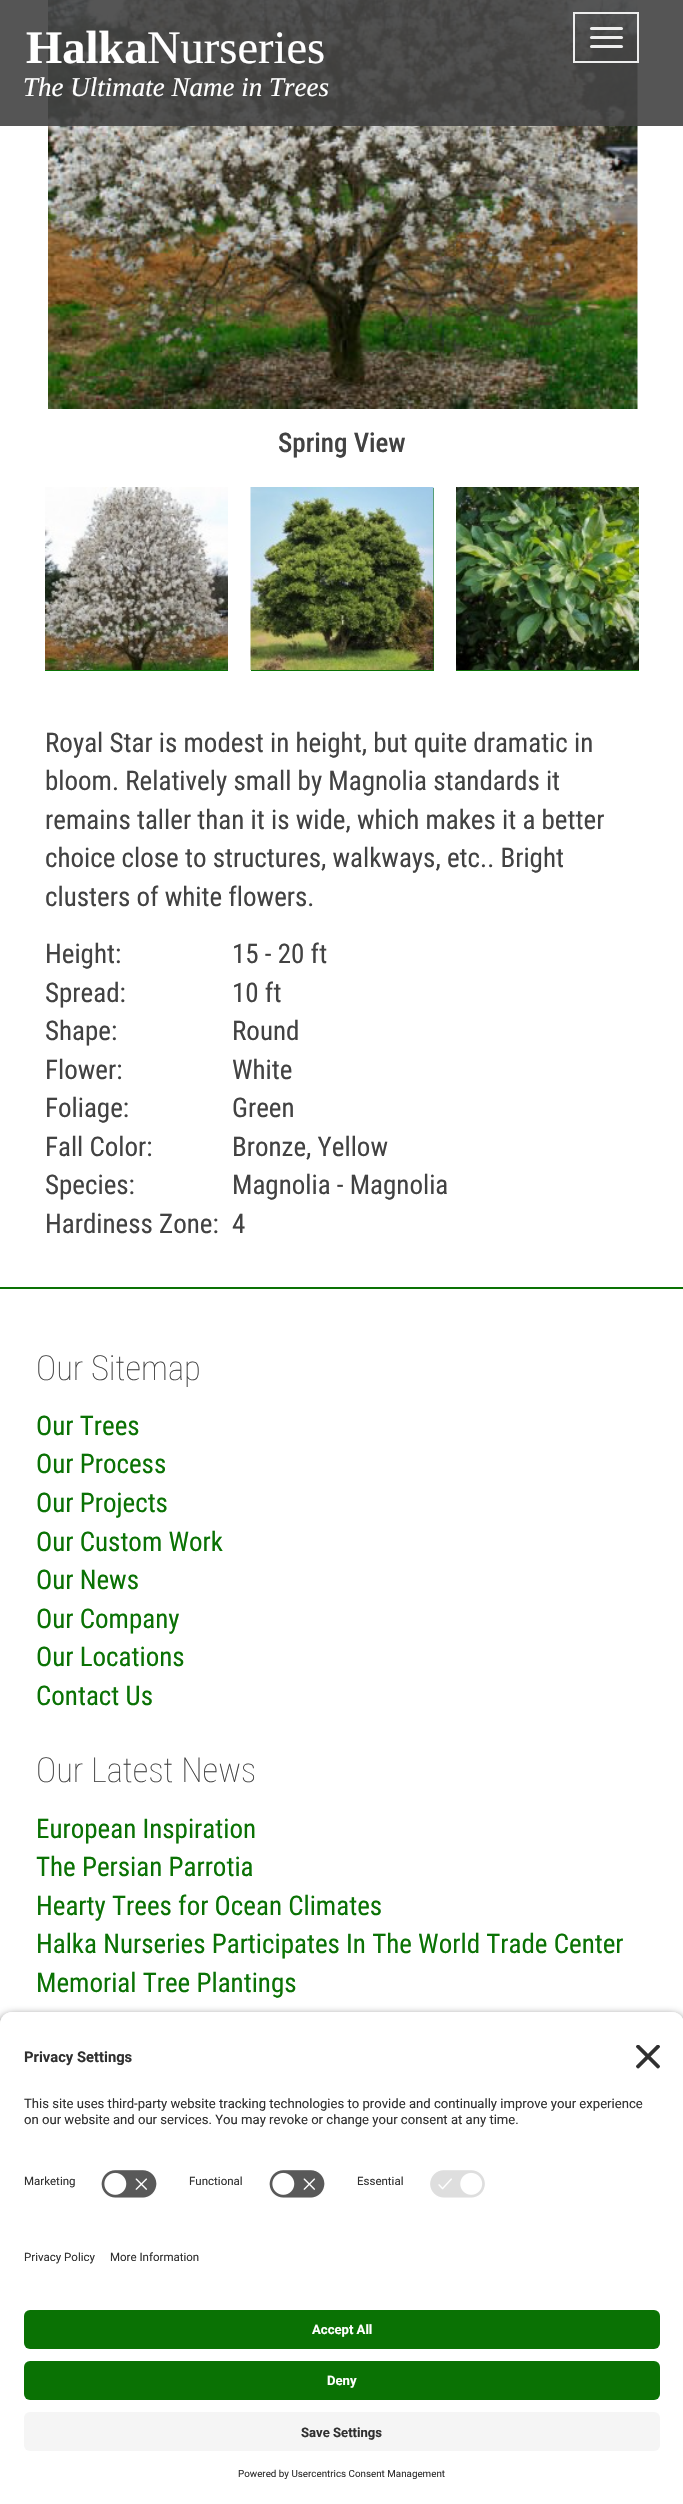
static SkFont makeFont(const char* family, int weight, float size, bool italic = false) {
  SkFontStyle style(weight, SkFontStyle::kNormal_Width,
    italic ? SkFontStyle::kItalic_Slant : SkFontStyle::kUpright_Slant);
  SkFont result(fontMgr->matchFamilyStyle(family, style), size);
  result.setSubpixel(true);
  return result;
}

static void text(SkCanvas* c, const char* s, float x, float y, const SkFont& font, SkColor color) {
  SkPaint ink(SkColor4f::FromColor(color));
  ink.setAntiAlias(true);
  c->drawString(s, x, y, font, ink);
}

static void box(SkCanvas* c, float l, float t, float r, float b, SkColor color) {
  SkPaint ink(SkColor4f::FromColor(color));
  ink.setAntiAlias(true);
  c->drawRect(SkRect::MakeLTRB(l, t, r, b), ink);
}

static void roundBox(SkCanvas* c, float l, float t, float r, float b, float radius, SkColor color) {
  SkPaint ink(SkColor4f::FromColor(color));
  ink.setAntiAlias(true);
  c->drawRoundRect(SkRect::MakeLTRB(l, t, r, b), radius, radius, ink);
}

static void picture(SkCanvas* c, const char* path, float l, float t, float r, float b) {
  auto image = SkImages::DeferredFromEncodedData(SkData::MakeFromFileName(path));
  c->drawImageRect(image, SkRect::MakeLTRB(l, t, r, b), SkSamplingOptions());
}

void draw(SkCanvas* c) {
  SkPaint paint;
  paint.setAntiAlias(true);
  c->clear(0xffffffff);
  picture(c, "img_01.png", 48, 0, 638, 409);
  box(c, 0, 0, 683, 126, 0xe6424242);
  SkFont face1 = makeFont("Liberation Serif", 700, 46.5f);
  text(c, "Halka", 26, 63, face1, 0xffffffff);
  SkFont face2 = makeFont("Liberation Serif", 400, 46.5f);
  text(c, "Nurseries", 147, 63, face2, 0xffffffff);
  SkFont face3 = makeFont("Liberation Serif", 400, 27, true);
  text(c, "The Ultimate Name in Trees", 23, 96, face3, 0xffffffff);
  paint.setStyle(SkPaint::kStroke_Style);
  paint.setStrokeWidth(2);
  paint.setColor(0xffeeeeee);
  c->drawRect(SkRect::MakeLTRB(574, 13, 638, 62), paint);
  roundBox(c, 590, 27, 623, 30, 1.5f, 0xffeeeeee);
  roundBox(c, 590, 36, 623, 39, 1.5f, 0xffeeeeee);
  roundBox(c, 590, 45, 623, 48, 1.5f, 0xffeeeeee);
  SkFont face4 = makeFont("Roboto Condensed", 500, 27);
  text(c, "Spring View", 278, 452, face4, 0xff424242);
  box(c, 45, 670, 228, 671, 0xff0a7204);
  picture(c, "img_02.png", 45, 487, 228, 670);
  box(c, 251, 488, 434, 671, 0xff0a7204);
  picture(c, "img_03.png", 250, 487, 434, 670);
  box(c, 456, 670, 639, 671, 0xff0a7204);
  picture(c, "img_04.png", 456, 487, 639, 670);
  SkFont face5 = makeFont("Roboto Condensed", 400, 27);
  text(c, "Royal Star is modest in height, but quite dramatic in", 45, 752, face5, 0xff424242);
  text(c, "bloom. Relatively small by Magnolia standards it", 45, 790, face5, 0xff424242);
  text(c, "remains taller than it is wide, which makes it a better", 45, 829, face5, 0xff424242);
  text(c, "choice close to structures, walkways, etc.. Bright", 45, 867, face5, 0xff424242);
  text(c, "clusters of white flowers.", 45, 906, face5, 0xff424242);
  text(c, "Height:", 45, 963, face5, 0xff424242);
  text(c, "15 - 20 ft", 232, 963, face5, 0xff424242);
  text(c, "Spread:", 45, 1002, face5, 0xff424242);
  text(c, "10 ft", 232, 1002, face5, 0xff424242);
  text(c, "Shape:", 45, 1040, face5, 0xff424242);
  text(c, "Round", 232, 1040, face5, 0xff424242);
  text(c, "Flower:", 45, 1079, face5, 0xff424242);
  text(c, "White", 232, 1079, face5, 0xff424242);
  text(c, "Foliage:", 45, 1117, face5, 0xff424242);
  text(c, "Green", 232, 1117, face5, 0xff424242);
  text(c, "Fall Color:", 45, 1156, face5, 0xff424242);
  text(c, "Bronze, Yellow", 232, 1156, face5, 0xff424242);
  text(c, "Species:", 45, 1194, face5, 0xff424242);
  text(c, "Magnolia - Magnolia", 232, 1194, face5, 0xff424242);
  text(c, "Hardiness Zone:", 45, 1233, face5, 0xff424242);
  text(c, "4", 232, 1233, face5, 0xff424242);
  box(c, 0, 1287, 683, 1289, 0xff0a7204);
  SkFont face6 = makeFont("Roboto Condensed", 100, 34.5f);
  text(c, "Our Sitemap", 36, 1380, face6, 0xff424242);
  text(c, "Our Trees", 36, 1435, face5, 0xff0a7204);
  text(c, "Our Process", 36, 1473, face5, 0xff0a7204);
  text(c, "Our Projects", 36, 1512, face5, 0xff0a7204);
  text(c, "Our Custom Work", 36, 1551, face5, 0xff0a7204);
  text(c, "Our News", 36, 1589, face5, 0xff0a7204);
  text(c, "Our Company", 36, 1628, face5, 0xff0a7204);
  text(c, "Our Locations", 36, 1666, face5, 0xff0a7204);
  text(c, "Contact Us", 36, 1705, face5, 0xff0a7204);
  text(c, "Our Latest News", 36, 1782, face6, 0xff424242);
  text(c, "European Inspiration", 36, 1838, face5, 0xff0a7204);
  text(c, "The Persian Parrotia", 36, 1876, face5, 0xff0a7204);
  text(c, "Hearty Trees for Ocean Climates", 36, 1915, face5, 0xff0a7204);
  text(c, "Halka Nurseries Participates In The World Trade Center", 36, 1953, face5, 0xff0a7204);
  text(c, "Memorial Tree Plantings", 36, 1992, face5, 0xff0a7204);
  paint.setStyle(SkPaint::kFill_Style);
  paint.setColor(0xcc000000);
  paint.setMaskFilter(SkMaskFilter::MakeBlur(kNormal_SkBlurStyle, 5));
  c->drawRoundRect(SkRect::MakeLTRB(0, 2016, 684, 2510), 12, 12, paint);
  paint.setMaskFilter(nullptr);
  paint.setColor(0xffffffff);
  c->drawPath(SkPathBuilder().moveTo(12, 2012).lineTo(672, 2012).cubicTo(678.5f, 2012, 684, 2017.5f, 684, 2024).lineTo(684, 2225).lineTo(0, 2225).lineTo(0, 2024).cubicTo(0, 2017.5f, 5.5f, 2012, 12, 2012).close().detach(), paint);
  c->drawPath(SkPathBuilder().moveTo(12, 2012).lineTo(672, 2012).cubicTo(678.5f, 2012, 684, 2017.5f, 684, 2024).lineTo(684, 2159).lineTo(0, 2159).lineTo(0, 2024).cubicTo(0, 2017.5f, 5.5f, 2012, 12, 2012).close().detach(), paint);
  SkFont face7 = makeFont("Roboto", 700, 14.75f);
  text(c, "Privacy Settings", 24, 2062, face7, 0xff303030);
  picture(c, "img_05.png", 636, 2045, 660, 2069);
  SkFont face8 = makeFont("Roboto", 400, 13.1f);
  text(c, "This site uses third-party website tracking technologies to provide and continually improve your experience", 24, 2108, face8, 0xff303030);
  text(c, "on our website and our services. You may revoke or change your consent at any time.", 24, 2124, face8, 0xff303030);
  SkFont face9 = makeFont("Roboto", 400, 11.5f);
  text(c, "Marketing", 24, 2185, face9, 0xff303030);
  picture(c, "img_06.png", 101, 2170, 157, 2198);
  text(c, "Functional", 189, 2185, face9, 0xff303030);
  picture(c, "img_06.png", 269, 2170, 325, 2198);
  text(c, "Essential", 357, 2185, face9, 0xff303030);
  picture(c, "img_07.png", 430, 2170, 485, 2198);
  box(c, 0, 2225, 683, 2504, 0xffffffff);
  text(c, "Privacy Policy", 24, 2261, face9, 0xff303030);
  text(c, "More Information", 110, 2261, face9, 0xff303030);
  roundBox(c, 24, 2310, 660, 2349, 6, 0xff0a7204);
  SkFont face10 = makeFont("Roboto", 700, 13.1f);
  text(c, "Accept All", 312, 2334, face10, 0xffffffff);
  roundBox(c, 24, 2361, 660, 2400, 6, 0xff0a7204);
  text(c, "Deny", 327, 2385, face10, 0xffffffff);
  roundBox(c, 24, 2412, 660, 2451, 6, 0xfff5f5f5);
  text(c, "Save Settings", 301, 2437, face10, 0xff303030);
  SkFont face11 = makeFont("Roboto", 400, 9.8f);
  text(c, "Powered by Usercentrics Consent Management", 238, 2477, face11, 0xff303030);
}
